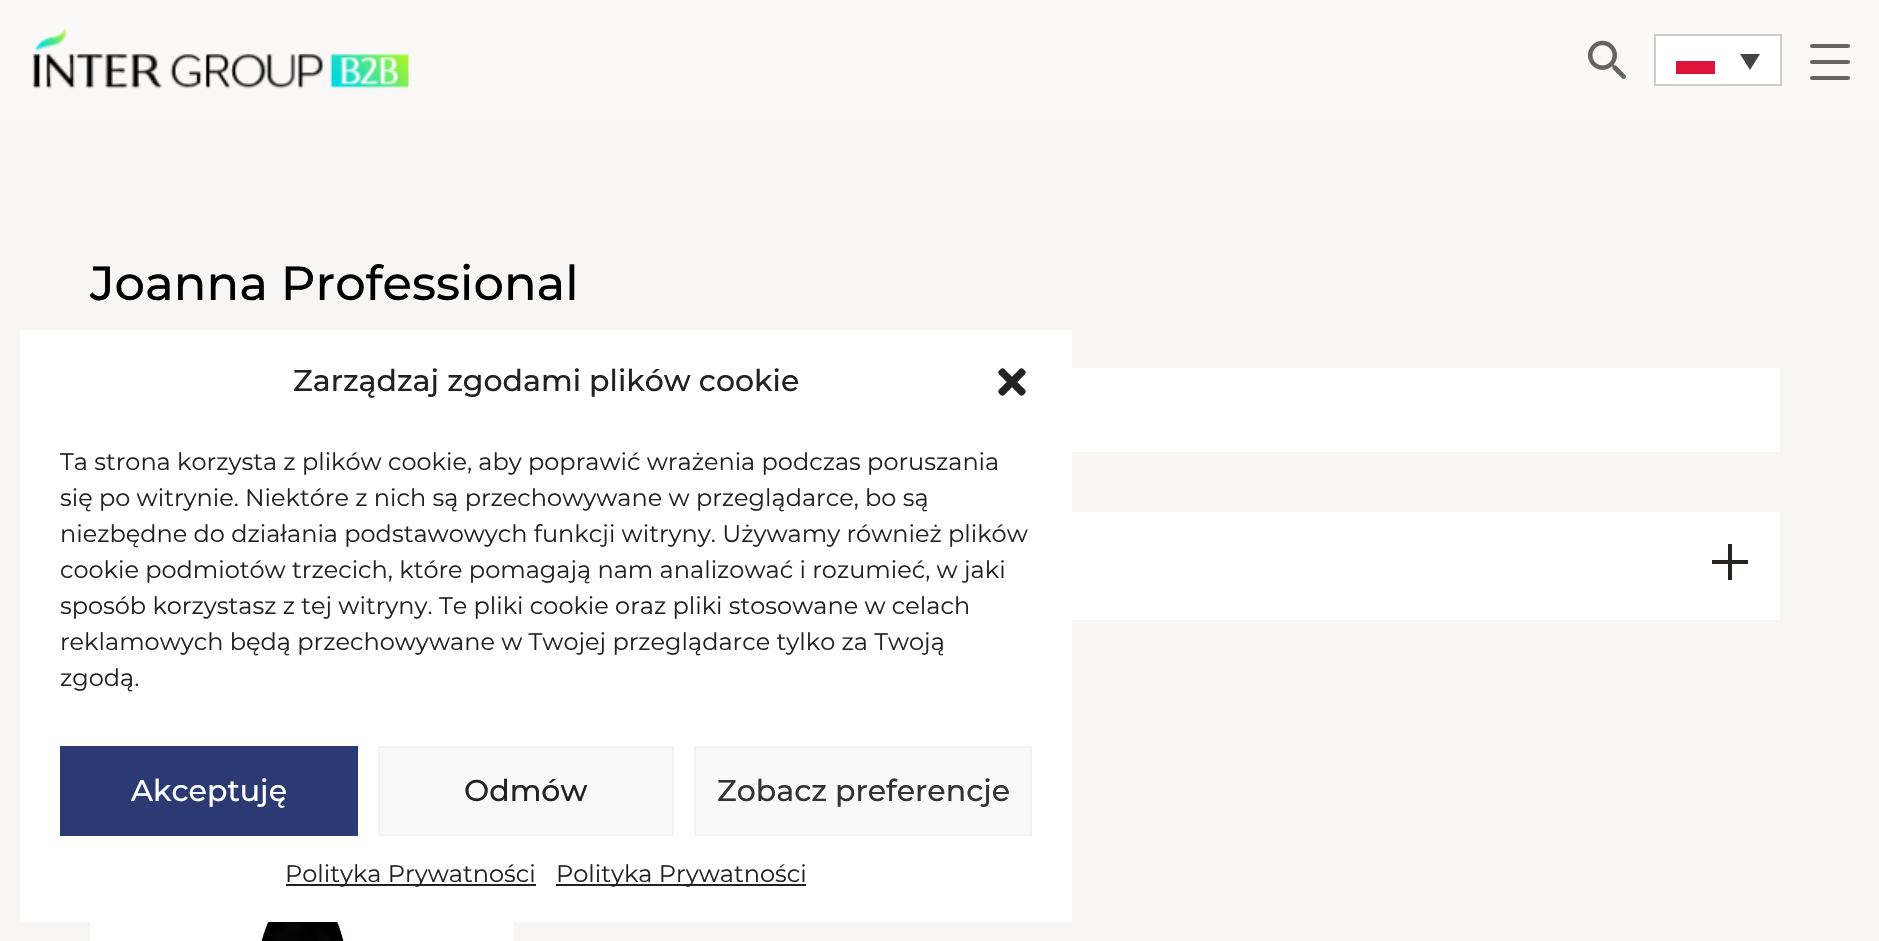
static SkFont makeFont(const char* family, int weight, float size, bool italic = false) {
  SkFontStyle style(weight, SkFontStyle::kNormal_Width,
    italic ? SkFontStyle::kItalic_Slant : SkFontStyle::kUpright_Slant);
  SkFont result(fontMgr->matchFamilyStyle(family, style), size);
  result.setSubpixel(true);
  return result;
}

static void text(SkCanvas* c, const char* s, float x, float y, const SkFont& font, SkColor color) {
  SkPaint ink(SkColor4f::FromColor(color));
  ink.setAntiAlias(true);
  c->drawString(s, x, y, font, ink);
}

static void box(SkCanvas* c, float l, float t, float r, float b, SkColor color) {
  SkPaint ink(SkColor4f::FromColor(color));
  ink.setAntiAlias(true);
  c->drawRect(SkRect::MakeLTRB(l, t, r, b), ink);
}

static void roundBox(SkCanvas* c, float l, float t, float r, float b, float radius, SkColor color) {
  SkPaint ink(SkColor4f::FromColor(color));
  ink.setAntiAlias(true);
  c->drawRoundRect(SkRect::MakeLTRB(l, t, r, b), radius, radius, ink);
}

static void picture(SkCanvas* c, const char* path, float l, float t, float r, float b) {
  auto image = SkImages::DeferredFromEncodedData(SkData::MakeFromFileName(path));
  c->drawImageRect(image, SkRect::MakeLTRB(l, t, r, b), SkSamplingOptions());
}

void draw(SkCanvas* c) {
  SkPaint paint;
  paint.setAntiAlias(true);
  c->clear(0xfff7f6f5);
  box(c, 0, 0, 1879, 120, 0xfffaf9f8);
  picture(c, "img_01.png", 32, 27, 410, 89);
  picture(c, "img_02.png", 1588, 40, 1626, 79);
  paint.setColor(0xffffffff);
  c->drawRect(SkRect::MakeLTRB(1655, 35, 1781, 85), paint);
  paint.setStyle(SkPaint::kStroke_Style);
  paint.setStrokeWidth(2);
  paint.setColor(0xffcdcdcd);
  c->drawRect(SkRect::MakeLTRB(1655, 35, 1781, 85), paint);
  box(c, 1676, 61, 1715, 74, 0xffdc143c);
  paint.setStyle(SkPaint::kFill_Style);
  paint.setColor(0xff444444);
  c->drawPath(SkPathBuilder().moveTo(1740, 54).lineTo(1760, 54).lineTo(1750, 70).close().detach(), paint);
  roundBox(c, 1810, 44, 1850, 48, 2, 0xff646463);
  roundBox(c, 1810, 60, 1850, 64, 2, 0xff646463);
  roundBox(c, 1810, 76, 1850, 80, 2, 0xff646463);
  SkFont face1 = makeFont("Montserrat", 500, 48);
  text(c, "Joanna Professional", 90, 300, face1, 0xff000000);
  box(c, 1072, 368, 1780, 452, 0xffffffff);
  box(c, 1072, 512, 1780, 620, 0xffffffff);
  box(c, 1712, 560, 1748, 564, 0xff262321);
  box(c, 1728, 544, 1732, 580, 0xff262321);
  picture(c, "img_03.png", 90, 922, 514, 941);
  box(c, 20, 330, 1072, 922, 0xffffffff);
  SkFont face2 = makeFont("Montserrat", 500, 30);
  text(c, "Zarządzaj zgodami plików cookie", 293, 391, face2, 0xff222222);
  picture(c, "img_04.png", 998, 368, 1026, 396);
  SkFont face3 = makeFont("Montserrat", 400, 24);
  text(c, "Ta strona korzysta z plików cookie, aby poprawić wrażenia podczas poruszania", 60, 470, face3, 0xff222222);
  text(c, "się po witrynie. Niektóre z nich są przechowywane w przeglądarce, bo są", 60, 506, face3, 0xff222222);
  text(c, "niezbędne do działania podstawowych funkcji witryny. Używamy również plików", 60, 542, face3, 0xff222222);
  text(c, "cookie podmiotów trzecich, które pomagają nam analizować i rozumieć, w jaki", 60, 578, face3, 0xff222222);
  text(c, "sposób korzystasz z tej witryny. Te pliki cookie oraz pliki stosowane w celach", 60, 614, face3, 0xff222222);
  text(c, "reklamowych będą przechowywane w Twojej przeglądarce tylko za Twoją", 60, 650, face3, 0xff222222);
  text(c, "zgodą.", 60, 686, face3, 0xff222222);
  box(c, 60, 746, 358, 836, 0xff2b3a72);
  text(c, "Akceptuję", 131, 801, face2, 0xffffffff);
  paint.setColor(0xfff9f9f9);
  c->drawRect(SkRect::MakeLTRB(379, 747, 673, 835), paint);
  paint.setStyle(SkPaint::kStroke_Style);
  paint.setColor(0xfff2f2f2);
  c->drawRect(SkRect::MakeLTRB(379, 747, 673, 835), paint);
  text(c, "Odmów", 464, 801, face2, 0xff222222);
  paint.setStyle(SkPaint::kFill_Style);
  paint.setColor(0xfff9f9f9);
  c->drawRect(SkRect::MakeLTRB(695, 747, 1031, 835), paint);
  paint.setStyle(SkPaint::kStroke_Style);
  paint.setColor(0xfff2f2f2);
  c->drawRect(SkRect::MakeLTRB(695, 747, 1031, 835), paint);
  text(c, "Zobacz preferencje", 717, 801, face2, 0xff333333);
  box(c, 286, 884, 536, 886, 0xff222222);
  text(c, "Polityka Prywatności", 285, 882, face3, 0xff222222);
  box(c, 556, 884, 806, 886, 0xff222222);
  text(c, "Polityka Prywatności", 556, 882, face3, 0xff222222);
}
